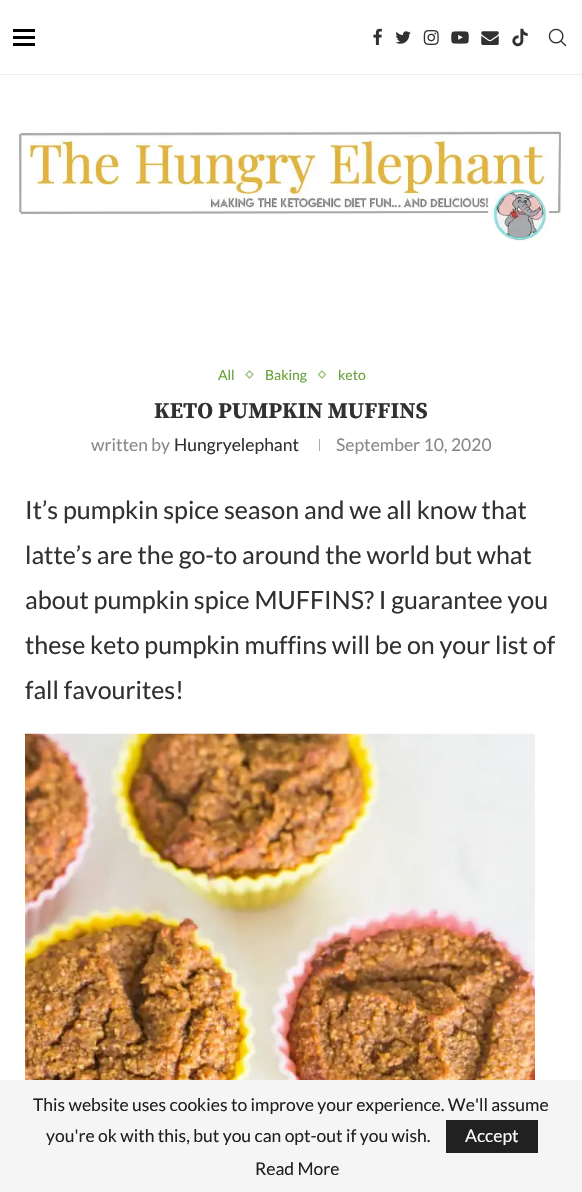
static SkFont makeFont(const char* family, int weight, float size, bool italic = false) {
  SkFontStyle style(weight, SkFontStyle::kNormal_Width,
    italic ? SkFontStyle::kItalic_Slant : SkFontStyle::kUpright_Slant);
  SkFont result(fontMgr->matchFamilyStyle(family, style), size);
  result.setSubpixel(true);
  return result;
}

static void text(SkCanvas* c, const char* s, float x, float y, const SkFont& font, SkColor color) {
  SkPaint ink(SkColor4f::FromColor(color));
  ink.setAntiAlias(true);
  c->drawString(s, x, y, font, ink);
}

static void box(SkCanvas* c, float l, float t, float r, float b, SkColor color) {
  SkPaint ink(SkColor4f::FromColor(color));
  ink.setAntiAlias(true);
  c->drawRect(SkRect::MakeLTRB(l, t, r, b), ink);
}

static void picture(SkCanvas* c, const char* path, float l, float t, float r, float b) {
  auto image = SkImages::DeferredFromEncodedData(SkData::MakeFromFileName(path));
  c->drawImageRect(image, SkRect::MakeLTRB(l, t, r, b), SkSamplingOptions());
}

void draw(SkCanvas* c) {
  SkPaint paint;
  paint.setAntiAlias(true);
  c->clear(0xffffffff);
  box(c, 0, 74, 582, 75, 0xffececec);
  box(c, 13, 29, 35, 32, 0xff000000);
  box(c, 13, 36, 35, 39, 0xff000000);
  box(c, 13, 43, 35, 46, 0xff000000);
  picture(c, "img_01.png", 373, 28, 382, 45);
  picture(c, "img_02.png", 395, 31, 411, 44);
  picture(c, "img_03.png", 423, 30, 439, 45);
  picture(c, "img_04.png", 451, 31, 469, 44);
  picture(c, "img_05.png", 481, 31, 499, 45);
  picture(c, "img_06.png", 512, 28, 528, 47);
  picture(c, "img_07.png", 548, 28, 567, 47);
  picture(c, "img_08.png", 19, 131, 562, 241);
  SkFont face1 = makeFont("Lato", 400, 14);
  text(c, "All", 218, 380, face1, 0xff689f38);
  paint.setStyle(SkPaint::kStroke_Style);
  paint.setStrokeWidth(1.3f);
  paint.setColor(0xff9dc17e);
  c->drawPath(SkPathBuilder().moveTo(249.5f, 371).lineTo(253, 374.5f).lineTo(249.5f, 378).lineTo(246, 374.5f).close().detach(), paint);
  text(c, "Baking", 265, 380, face1, 0xff689f38);
  c->drawPath(SkPathBuilder().moveTo(322, 371).lineTo(325.5f, 374.5f).lineTo(322, 378).lineTo(318.5f, 374.5f).close().detach(), paint);
  text(c, "keto", 338, 380, face1, 0xff689f38);
  SkFont face2 = makeFont("Source Serif Pro", 700, 22.5f);
  text(c, "KETO PUMPKIN MUFFINS", 154, 418, face2, 0xff313131);
  SkFont face3 = makeFont("Lato", 400, 17.5f);
  text(c, "written by", 91, 451, face3, 0xff888888);
  text(c, "Hungryelephant", 174, 451, face3, 0xff313131);
  box(c, 319, 439, 320, 451, 0xffacacac);
  text(c, "September 10, 2020", 336, 451, face3, 0xff888888);
  SkFont face4 = makeFont("Lato", 400, 25);
  text(c, "It’s pumpkin spice season and we all know that", 25, 519, face4, 0xff313131);
  text(c, "latte’s are the go-to around the world but what", 25, 564, face4, 0xff313131);
  text(c, "about pumpkin spice MUFFINS? I guarantee you", 25, 609, face4, 0xff313131);
  text(c, "these keto pumpkin muffins will be on your list of", 25, 654, face4, 0xff313131);
  text(c, "fall favourites!", 25, 699, face4, 0xff313131);
  picture(c, "img_09.png", 25, 733, 535, 1080);
  box(c, 0, 1080, 582, 1192, 0xfff5f5f5);
  text(c, "This website uses cookies to improve your experience. We'll assume", 33, 1111, face3, 0xff212121);
  text(c, "you're ok with this, but you can opt-out if you wish.", 46, 1142, face3, 0xff212121);
  box(c, 446, 1120, 538, 1153, 0xff212121);
  text(c, "Accept", 465, 1142, face3, 0xffffffff);
  text(c, "Read More", 255, 1175, face3, 0xff212121);
}
